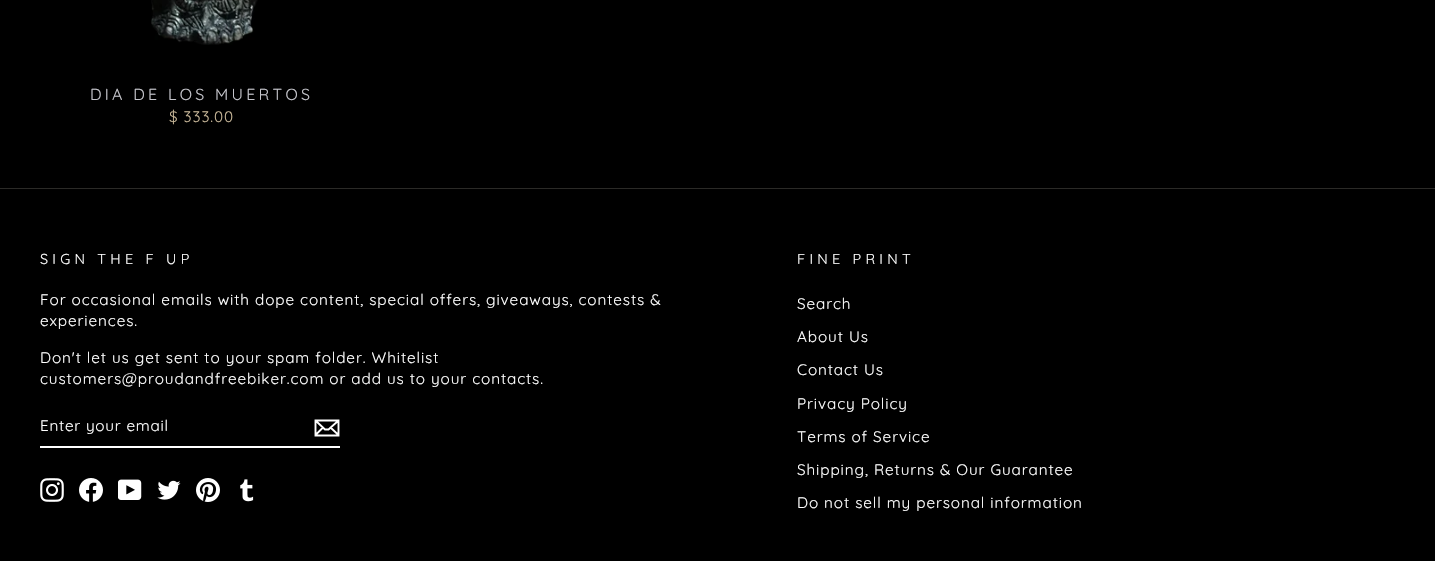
static SkFont makeFont(const char* family, int weight, float size, bool italic = false) {
  SkFontStyle style(weight, SkFontStyle::kNormal_Width,
    italic ? SkFontStyle::kItalic_Slant : SkFontStyle::kUpright_Slant);
  SkFont result(fontMgr->matchFamilyStyle(family, style), size);
  result.setSubpixel(true);
  return result;
}

static void spacedText(SkCanvas* c, const char* s, float x, float y, const SkFont& font, const SkPaint& ink, float letter, float word) {
  std::vector<SkGlyphID> glyphs(font.countText(s, strlen(s), SkTextEncoding::kUTF8));
  std::vector<float> xs(glyphs.size());
  font.textToGlyphs(s, strlen(s), SkTextEncoding::kUTF8, glyphs);
  font.getXPos(glyphs, xs, x);
  float extra = 0;
  for (size_t i = 0; i < glyphs.size(); i++) {
    xs[i] += extra;
    extra += letter + word * (glyphs[i] == font.unicharToGlyph(' '));
  }
  c->drawTextBlob(SkTextBlob::MakeFromPosHGlyphs(glyphs, xs, y, font), 0, 0, ink);
}

static void box(SkCanvas* c, float l, float t, float r, float b, SkColor color) {
  SkPaint ink(SkColor4f::FromColor(color));
  ink.setAntiAlias(true);
  c->drawRect(SkRect::MakeLTRB(l, t, r, b), ink);
}

static void picture(SkCanvas* c, const char* path, float l, float t, float r, float b) {
  auto image = SkImages::DeferredFromEncodedData(SkData::MakeFromFileName(path));
  c->drawImageRect(image, SkRect::MakeLTRB(l, t, r, b), SkSamplingOptions());
}

void draw(SkCanvas* c) {
  SkPaint paint;
  paint.setAntiAlias(true);
  c->clear(0xff000000);
  picture(c, "img_01.png", 151, 0, 258, 45);
  SkFont face1 = makeFont("Quicksand", 400, 16);
  paint.setColor(0xffc6c6cc);
  spacedText(c, "DIA DE LOS MUERTOS", 90, 100, face1, paint, 3.25f, 0);
  SkFont face2 = makeFont("Quicksand", 400, 15.3f);
  paint.setColor(0xffc9b899);
  spacedText(c, "$ 333.00", 169, 122, face2, paint, 0.9f, 0);
  box(c, 0, 188, 1435, 189, 0xff2b2a27);
  SkFont face3 = makeFont("Quicksand", 400, 14.4f);
  paint.setColor(0xffffffff);
  spacedText(c, "SIGN THE F UP", 40, 264, face3, paint, 4.25f, 0);
  spacedText(c, "For occasional emails with dope content, special offers, giveaways, contests &", 40, 305, face2, paint, 0.9f, 0);
  spacedText(c, "experiences.", 40, 326, face2, paint, 0.9f, 0);
  spacedText(c, "Don't let us get sent to your spam folder. Whitelist", 40, 363, face2, paint, 0.9f, 0);
  spacedText(c, "customers@proudandfreebiker.com or add us to your contacts.", 40, 384, face2, paint, 0.9f, 0);
  box(c, 40, 446, 340, 448, 0xffffffff);
  spacedText(c, "Enter your email", 40, 431, face2, paint, 0.75f, 0);
  paint.setStyle(SkPaint::kStroke_Style);
  paint.setStrokeWidth(1.9f);
  c->drawPath(SkPathBuilder().moveTo(338.5f, 435.5f).lineTo(315.5f, 435.5f).lineTo(315.5f, 420.5f).lineTo(338.5f, 420.5f).close().moveTo(315.5f, 420.5f).lineTo(325, 429.5f).lineTo(328.5f, 429.5f).lineTo(338.5f, 420.5f).moveTo(323, 427.5f).lineTo(315.5f, 435).moveTo(338.5f, 435).lineTo(330.5f, 427.5f).detach(), paint);
  picture(c, "img_02.png", 40, 478, 64, 502);
  picture(c, "img_03.png", 79, 478, 103, 502);
  picture(c, "img_04.png", 118, 479, 142, 500);
  picture(c, "img_05.png", 157, 480, 181, 500);
  picture(c, "img_06.png", 196, 478, 220, 502);
  picture(c, "img_07.png", 240, 479, 254, 502);
  paint.setStyle(SkPaint::kFill_Style);
  spacedText(c, "FINE PRINT", 797, 264, face3, paint, 4.25f, 0);
  spacedText(c, "Search", 797, 309, face2, paint, 0.9f, 0);
  spacedText(c, "About Us", 797, 342, face2, paint, 0.9f, 0);
  spacedText(c, "Contact Us", 797, 375, face2, paint, 0.9f, 0);
  spacedText(c, "Privacy Policy", 797, 409, face2, paint, 0.9f, 0);
  spacedText(c, "Terms of Service", 797, 442, face2, paint, 0.9f, 0);
  spacedText(c, "Shipping, Returns & Our Guarantee", 797, 475, face2, paint, 0.9f, 0);
  spacedText(c, "Do not sell my personal information", 797, 508, face2, paint, 0.9f, 0);
}
